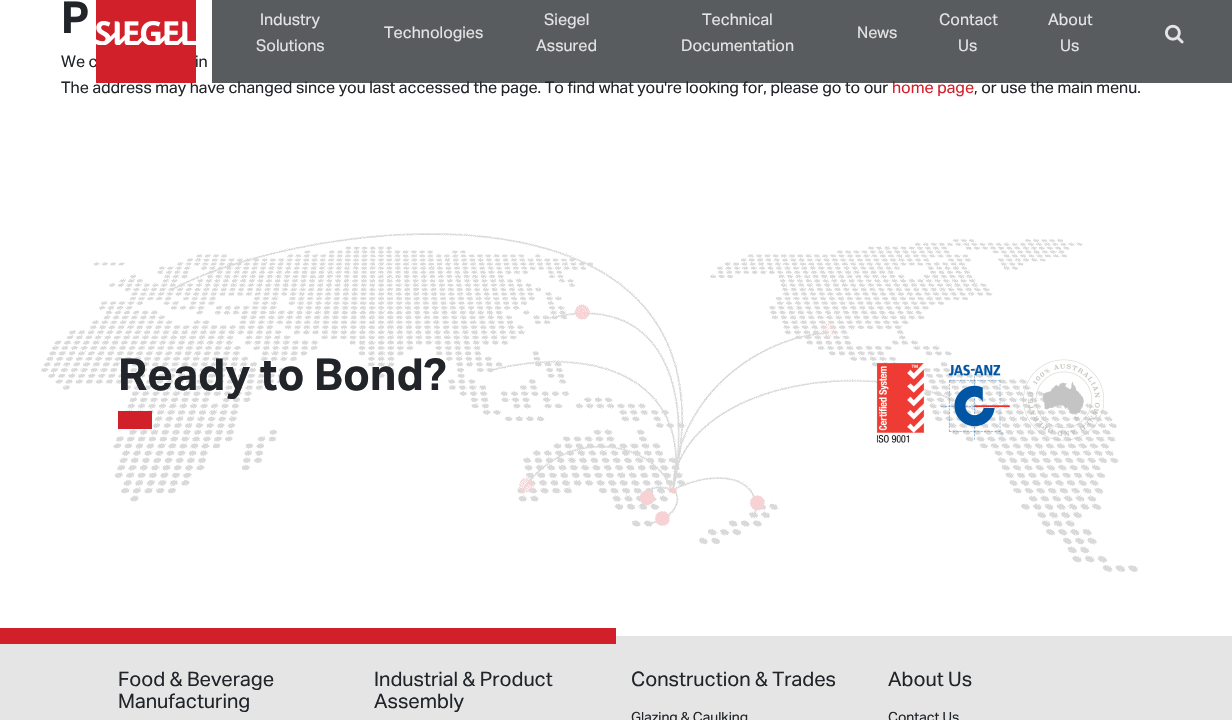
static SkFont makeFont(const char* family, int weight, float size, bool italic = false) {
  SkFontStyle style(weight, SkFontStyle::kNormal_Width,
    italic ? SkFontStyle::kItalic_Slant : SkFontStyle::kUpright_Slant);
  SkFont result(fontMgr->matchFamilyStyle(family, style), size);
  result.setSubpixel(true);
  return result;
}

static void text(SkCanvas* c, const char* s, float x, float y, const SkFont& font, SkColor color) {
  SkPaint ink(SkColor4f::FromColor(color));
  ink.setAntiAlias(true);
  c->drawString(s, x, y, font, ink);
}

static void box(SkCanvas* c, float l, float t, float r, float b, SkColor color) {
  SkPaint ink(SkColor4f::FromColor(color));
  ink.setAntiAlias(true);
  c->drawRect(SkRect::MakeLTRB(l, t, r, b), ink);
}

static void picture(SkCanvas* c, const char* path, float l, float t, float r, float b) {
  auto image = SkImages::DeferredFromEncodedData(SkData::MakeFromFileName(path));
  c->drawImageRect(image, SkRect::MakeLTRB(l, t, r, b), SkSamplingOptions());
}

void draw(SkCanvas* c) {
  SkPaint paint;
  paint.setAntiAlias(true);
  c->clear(0xffffffff);
  SkFont face1 = makeFont("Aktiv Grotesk", 700, 44);
  text(c, "P", 61, 33, face1, 0xff212529);
  SkFont face2 = makeFont("Aktiv Grotesk", 400, 16);
  text(c, "We c", 61, 67, face2, 0xff212529);
  text(c, "in", 195, 67, face2, 0xff212529);
  text(c, "The address may have changed since you last accessed the page. To find what you're looking for, please go to our", 61, 93, face2, 0xff212529);
  text(c, "home page", 892, 93, face2, 0xffd1202a);
  text(c, ", or use the main menu.", 974, 93, face2, 0xff212529);
  box(c, 96, 0, 196, 83, 0xffd1202a);
  picture(c, "img_01.png", 96, 21, 196, 45);
  box(c, 212, 0, 1232, 83, 0xbf212529);
  text(c, "Industry", 260, 25, face2, 0xffe5e5e5);
  text(c, "Solutions", 256, 51, face2, 0xffe5e5e5);
  text(c, "Technologies", 384, 38, face2, 0xffe5e5e5);
  text(c, "Siegel", 544, 25, face2, 0xffe5e5e5);
  text(c, "Assured", 536, 51, face2, 0xffe5e5e5);
  text(c, "Technical", 702, 25, face2, 0xffe5e5e5);
  text(c, "Documentation", 681, 51, face2, 0xffe5e5e5);
  text(c, "News", 857, 38, face2, 0xffe5e5e5);
  text(c, "Contact", 939, 25, face2, 0xffe5e5e5);
  text(c, "Us", 958, 51, face2, 0xffe5e5e5);
  text(c, "About", 1048, 25, face2, 0xffe5e5e5);
  text(c, "Us", 1060, 51, face2, 0xffe5e5e5);
  picture(c, "img_02.png", 1165, 24, 1184, 44);
  picture(c, "img_03.png", 41, 233, 1139, 572);
  text(c, "Ready to Bond?", 118, 390, face1, 0xff212529);
  box(c, 118, 411, 152, 429, 0xffd1202a);
  picture(c, "img_04.png", 876, 363, 925, 443);
  picture(c, "img_05.png", 941, 364, 1010, 440);
  picture(c, "img_06.png", 1023, 359, 1104, 441);
  box(c, 0, 636, 1232, 720, 0xffe5e5e5);
  box(c, 0, 628, 616, 644, 0xffd1202a);
  SkFont face3 = makeFont("Aktiv Grotesk", 400, 20);
  text(c, "Food & Beverage", 118, 686, face3, 0xff212529);
  text(c, "Manufacturing", 118, 708, face3, 0xff212529);
  text(c, "Industrial & Product", 374, 686, face3, 0xff212529);
  text(c, "Assembly", 374, 708, face3, 0xff212529);
  text(c, "Construction & Trades", 631, 686, face3, 0xff212529);
  SkFont face4 = makeFont("Aktiv Grotesk", 400, 14);
  text(c, "Glazing & Caulking", 631, 722, face4, 0xff212529);
  text(c, "About Us", 888, 686, face3, 0xff212529);
  text(c, "Contact Us", 888, 722, face4, 0xff212529);
}
